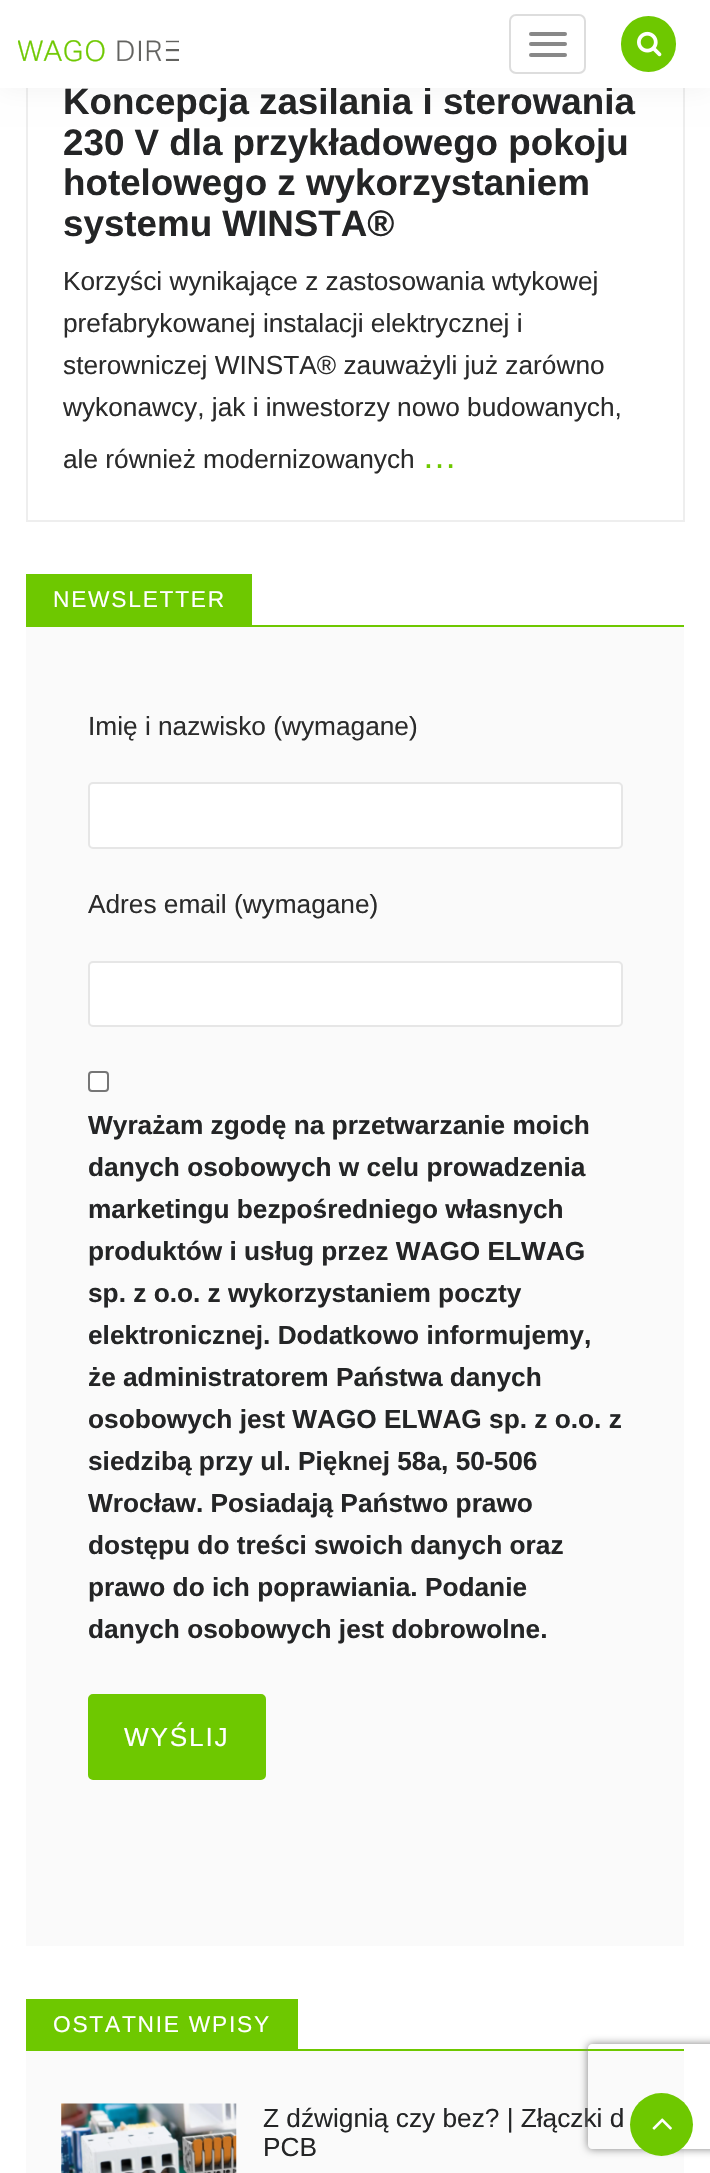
static SkFont makeFont(const char* family, int weight, float size, bool italic = false) {
  SkFontStyle style(weight, SkFontStyle::kNormal_Width,
    italic ? SkFontStyle::kItalic_Slant : SkFontStyle::kUpright_Slant);
  SkFont result(fontMgr->matchFamilyStyle(family, style), size);
  result.setSubpixel(true);
  return result;
}

static void text(SkCanvas* c, const char* s, float x, float y, const SkFont& font, SkColor color) {
  SkPaint ink(SkColor4f::FromColor(color));
  ink.setAntiAlias(true);
  c->drawString(s, x, y, font, ink);
}

static void spacedText(SkCanvas* c, const char* s, float x, float y, const SkFont& font, const SkPaint& ink, float letter, float word) {
  std::vector<SkGlyphID> glyphs(font.countText(s, strlen(s), SkTextEncoding::kUTF8));
  std::vector<float> xs(glyphs.size());
  font.textToGlyphs(s, strlen(s), SkTextEncoding::kUTF8, glyphs);
  font.getXPos(glyphs, xs, x);
  float extra = 0;
  for (size_t i = 0; i < glyphs.size(); i++) {
    xs[i] += extra;
    extra += letter + word * (glyphs[i] == font.unicharToGlyph(' '));
  }
  c->drawTextBlob(SkTextBlob::MakeFromPosHGlyphs(glyphs, xs, y, font), 0, 0, ink);
}

static void box(SkCanvas* c, float l, float t, float r, float b, SkColor color) {
  SkPaint ink(SkColor4f::FromColor(color));
  ink.setAntiAlias(true);
  c->drawRect(SkRect::MakeLTRB(l, t, r, b), ink);
}

static void roundBox(SkCanvas* c, float l, float t, float r, float b, float radius, SkColor color) {
  SkPaint ink(SkColor4f::FromColor(color));
  ink.setAntiAlias(true);
  c->drawRoundRect(SkRect::MakeLTRB(l, t, r, b), radius, radius, ink);
}

static void picture(SkCanvas* c, const char* path, float l, float t, float r, float b) {
  auto image = SkImages::DeferredFromEncodedData(SkData::MakeFromFileName(path));
  c->drawImageRect(image, SkRect::MakeLTRB(l, t, r, b), SkSamplingOptions());
}

void draw(SkCanvas* c) {
  SkPaint paint;
  paint.setAntiAlias(true);
  c->clear(0xffffffff);
  box(c, 683, 88, 685, 522, 0xffeeeeee);
  box(c, 26, 520, 684, 522, 0xffeeeeee);
  box(c, 26, 88, 28, 522, 0xffeeeeee);
  paint.setColor(0x0d000000);
  paint.setMaskFilter(SkMaskFilter::MakeBlur(kNormal_SkBlurStyle, 13));
  c->drawRect(SkRect::MakeLTRB(0, 0, 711, 88), paint);
  paint.setMaskFilter(nullptr);
  SkFont face1 = makeFont("Liberation Sans", 700, 36.75f);
  text(c, "Koncepcja zasilania i sterowania", 63, 114, face1, 0xff242526);
  box(c, 0, 0, 710, 88, 0xffffffff);
  picture(c, "img_01.png", 18, 40, 179, 62);
  paint.setStyle(SkPaint::kStroke_Style);
  paint.setStrokeWidth(2);
  paint.setColor(0xffdddddd);
  c->drawRoundRect(SkRect::MakeLTRB(510, 15, 585, 73), 6, 6, paint);
  roundBox(c, 529, 32, 567, 36, 2, 0xff888888);
  roundBox(c, 529, 42, 567, 46, 2, 0xff888888);
  roundBox(c, 529, 53, 567, 57, 2, 0xff888888);
  roundBox(c, 621, 16, 676, 72, 27.5f, 0xff6ec800);
  picture(c, "img_02.png", 637, 31, 662, 57);
  text(c, "230 V dla przykładowego pokoju", 63, 155, face1, 0xff242526);
  text(c, "hotelowego z wykorzystaniem", 63, 195, face1, 0xff242526);
  text(c, "systemu WINSTA®", 63, 236, face1, 0xff242526);
  SkFont face2 = makeFont("Liberation Sans", 400, 26.25f);
  text(c, "Korzyści wynikające z zastosowania wtykowej", 63, 290, face2, 0xff2b2b2b);
  text(c, "prefabrykowanej instalacji elektrycznej i", 63, 332, face2, 0xff2b2b2b);
  text(c, "sterowniczej WINSTA® zauważyli już zarówno", 63, 374, face2, 0xff2b2b2b);
  text(c, "wykonawcy, jak i inwestorzy nowo budowanych,", 63, 416, face2, 0xff2b2b2b);
  text(c, "ale również modernizowanych", 63, 468, face2, 0xff2b2b2b);
  SkFont face3 = makeFont("Liberation Sans", 400, 35);
  text(c, "…", 422, 468, face3, 0xff6ec800);
  box(c, 26, 627, 684, 1946, 0xfffafafa);
  box(c, 26, 625, 684, 627, 0xff6ec800);
  box(c, 26, 574, 252, 625, 0xff6ec800);
  SkFont face4 = makeFont("Liberation Sans", 400, 22.75f);
  paint.setStyle(SkPaint::kFill_Style);
  paint.setColor(0xffffffff);
  spacedText(c, "NEWSLETTER", 53, 607, face4, paint, 1.75f, 0);
  text(c, "Imię i nazwisko (wymagane)", 88, 735, face2, 0xff2b2b2b);
  c->drawRoundRect(SkRect::MakeLTRB(89, 783, 622, 848), 4, 4, paint);
  paint.setStyle(SkPaint::kStroke_Style);
  paint.setColor(0xffe6e6e6);
  c->drawRoundRect(SkRect::MakeLTRB(89, 783, 622, 848), 4, 4, paint);
  text(c, "Adres email (wymagane)", 88, 913, face2, 0xff2b2b2b);
  paint.setStyle(SkPaint::kFill_Style);
  paint.setColor(0xffffffff);
  c->drawRoundRect(SkRect::MakeLTRB(89, 962, 622, 1026), 4, 4, paint);
  paint.setStyle(SkPaint::kStroke_Style);
  paint.setColor(0xffe6e6e6);
  c->drawRoundRect(SkRect::MakeLTRB(89, 962, 622, 1026), 4, 4, paint);
  paint.setStyle(SkPaint::kFill_Style);
  paint.setColor(0xffffffff);
  c->drawRoundRect(SkRect::MakeLTRB(89, 1072, 108, 1091), 3, 3, paint);
  paint.setStyle(SkPaint::kStroke_Style);
  paint.setColor(0xff767676);
  c->drawRoundRect(SkRect::MakeLTRB(89, 1072, 108, 1091), 3, 3, paint);
  SkFont face5 = makeFont("Liberation Sans", 700, 26.25f);
  text(c, "Wyrażam zgodę na przetwarzanie moich", 88, 1134, face5, 0xff242526);
  text(c, "danych osobowych w celu prowadzenia", 88, 1176, face5, 0xff242526);
  text(c, "marketingu bezpośredniego własnych", 88, 1218, face5, 0xff242526);
  text(c, "produktów i usług przez WAGO ELWAG", 88, 1260, face5, 0xff242526);
  text(c, "sp. z o.o. z wykorzystaniem poczty", 88, 1302, face5, 0xff242526);
  text(c, "elektronicznej. Dodatkowo informujemy,", 88, 1344, face5, 0xff242526);
  text(c, "że administratorem Państwa danych", 88, 1386, face5, 0xff242526);
  text(c, "osobowych jest WAGO ELWAG sp. z o.o. z", 88, 1428, face5, 0xff242526);
  text(c, "siedzibą przy ul. Pięknej 58a, 50-506", 88, 1470, face5, 0xff242526);
  text(c, "Wrocław. Posiadają Państwo prawo", 88, 1512, face5, 0xff242526);
  text(c, "dostępu do treści swoich danych oraz", 88, 1554, face5, 0xff242526);
  text(c, "prawo do ich poprawiania. Podanie", 88, 1596, face5, 0xff242526);
  text(c, "danych osobowych jest dobrowolne.", 88, 1638, face5, 0xff242526);
  paint.setStyle(SkPaint::kFill_Style);
  paint.setColor(0xff6ec800);
  c->drawRoundRect(SkRect::MakeLTRB(89, 1695, 265, 1779), 4, 4, paint);
  paint.setStyle(SkPaint::kStroke_Style);
  c->drawRoundRect(SkRect::MakeLTRB(89, 1695, 265, 1779), 4, 4, paint);
  paint.setStyle(SkPaint::kFill_Style);
  paint.setColor(0xffffffff);
  spacedText(c, "WYŚLIJ", 124, 1746, face2, paint, 1.75f, 0);
  box(c, 26, 2051, 684, 2173, 0xfffafafa);
  box(c, 26, 2049, 684, 2051, 0xff6ec800);
  box(c, 26, 1999, 298, 2049, 0xff6ec800);
  spacedText(c, "OSTATNIE WPISY", 53, 2032, face4, paint, 1.75f, 0);
  picture(c, "img_03.png", 61, 2103, 237, 2173);
  text(c, "Z dźwignią czy bez? | Złączki d", 263, 2127, face2, 0xff242526);
  text(c, "PCB", 263, 2156, face2, 0xff242526);
  c->save();
  c->clipPath(SkPathBuilder(SkPathFillType::kEvenOdd).moveTo(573, 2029).lineTo(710, 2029).lineTo(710, 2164).lineTo(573, 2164).close().moveTo(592, 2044).lineTo(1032, 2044).cubicTo(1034, 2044, 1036, 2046, 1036, 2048).lineTo(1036, 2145).cubicTo(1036, 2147, 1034, 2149, 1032, 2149).lineTo(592, 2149).cubicTo(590, 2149, 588, 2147, 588, 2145).lineTo(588, 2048).cubicTo(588, 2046, 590, 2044, 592, 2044).close().detach(), true);
  paint.setColor(0xff808080);
  paint.setMaskFilter(SkMaskFilter::MakeBlur(kNormal_SkBlurStyle, 4.5f));
  c->drawRoundRect(SkRect::MakeLTRB(588, 2044, 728, 2149), 4, 4, paint);
  paint.setMaskFilter(nullptr);
  c->restore();
  paint.setColor(0xff6ec800);
  c->drawCircle(661.5f, 2124.5f, 31.5f, paint);
  picture(c, "img_04.png", 652, 2118, 672, 2130);
}
